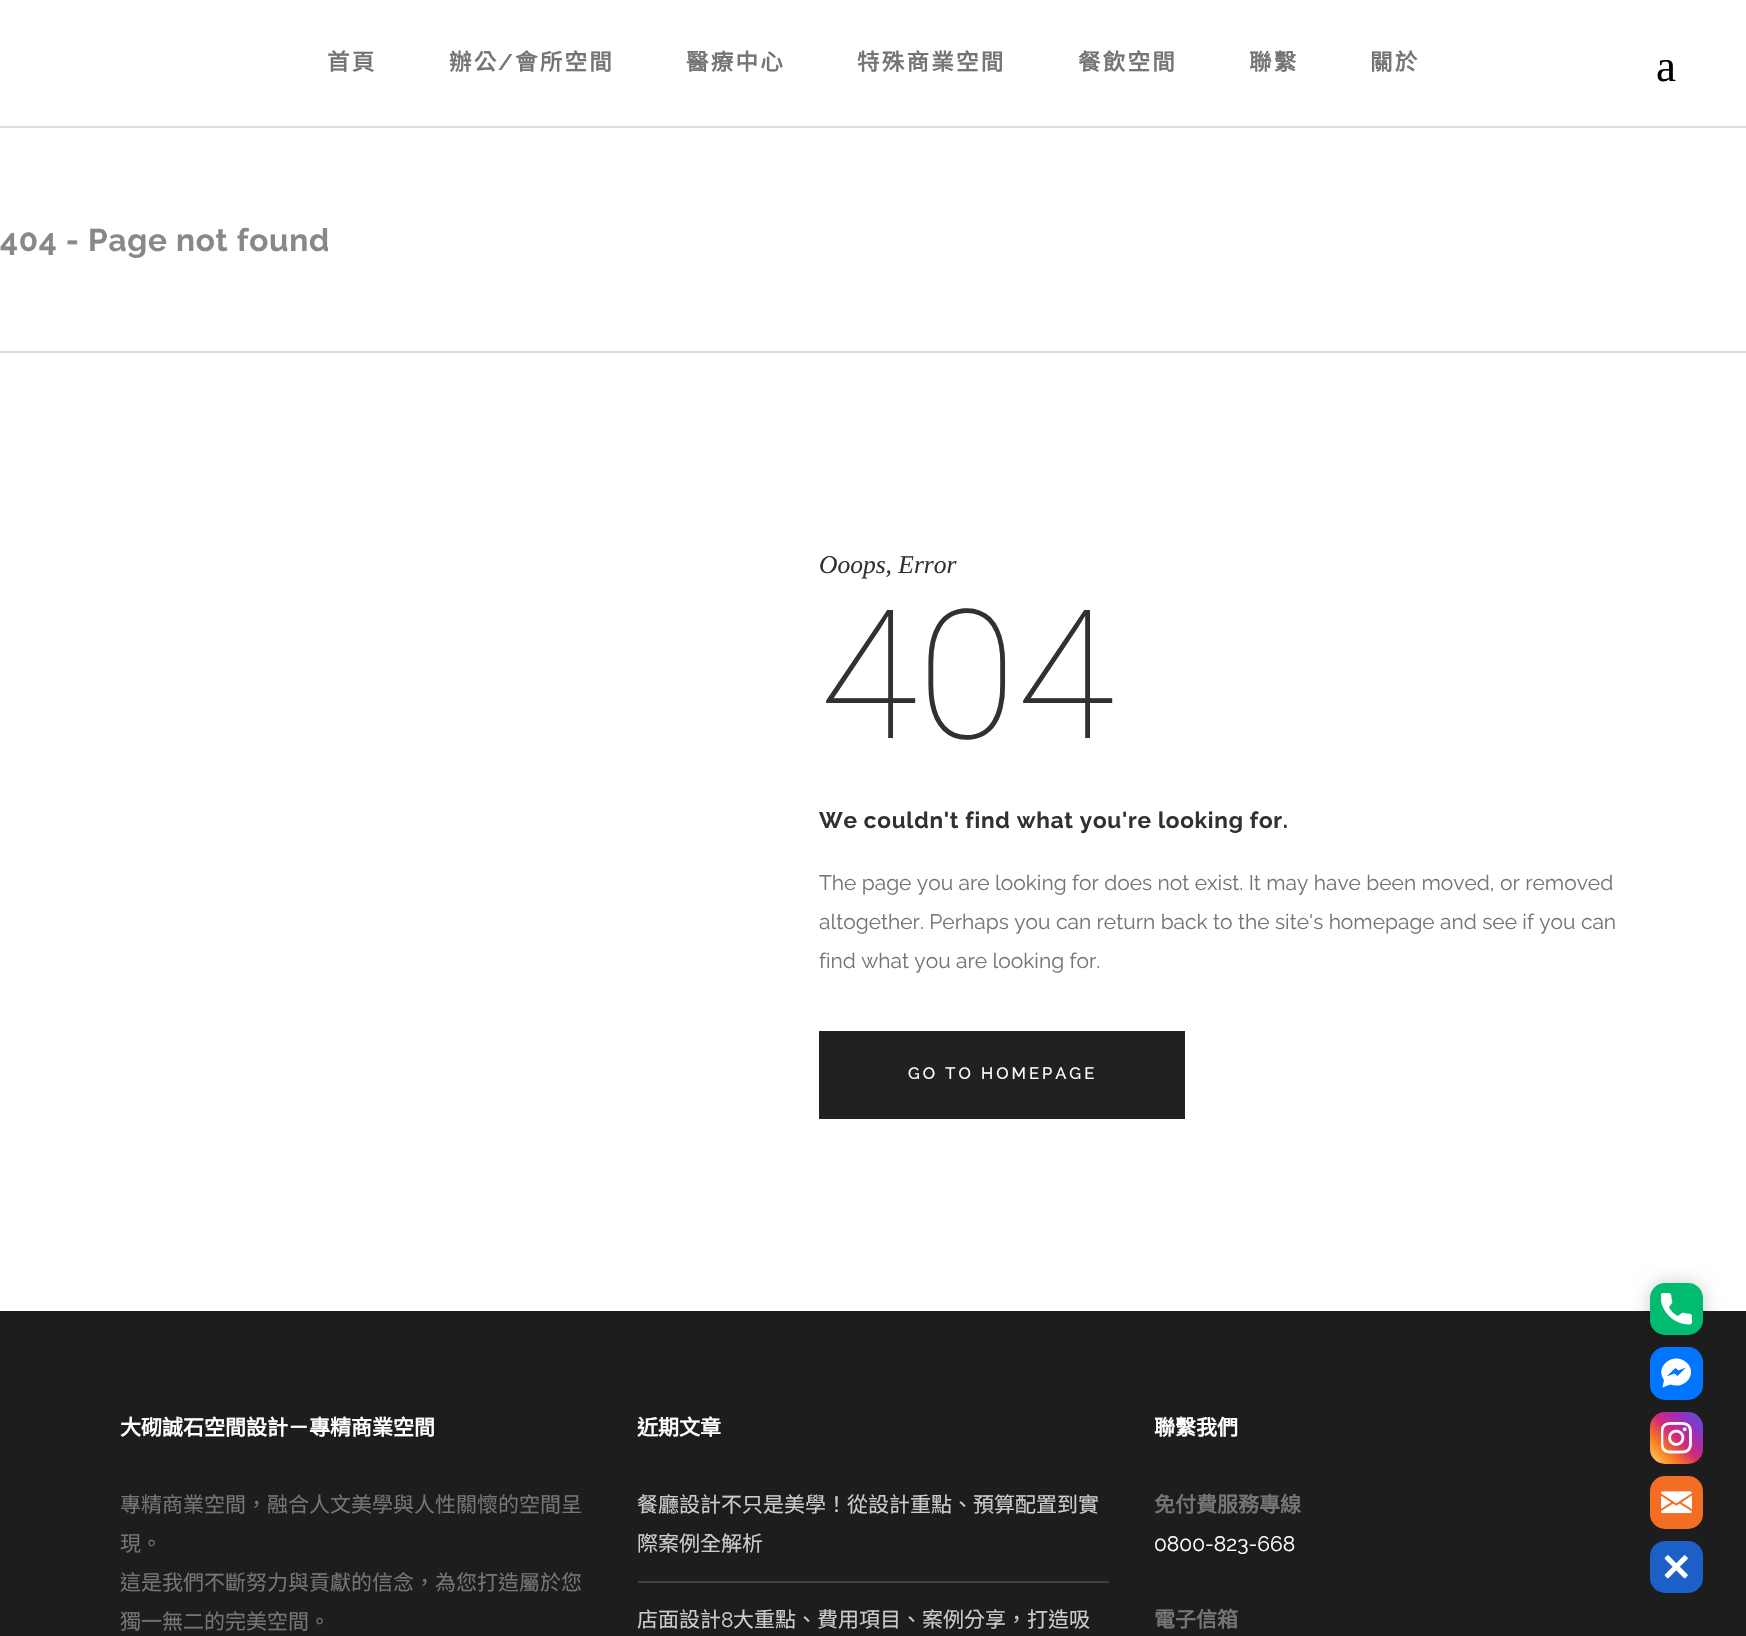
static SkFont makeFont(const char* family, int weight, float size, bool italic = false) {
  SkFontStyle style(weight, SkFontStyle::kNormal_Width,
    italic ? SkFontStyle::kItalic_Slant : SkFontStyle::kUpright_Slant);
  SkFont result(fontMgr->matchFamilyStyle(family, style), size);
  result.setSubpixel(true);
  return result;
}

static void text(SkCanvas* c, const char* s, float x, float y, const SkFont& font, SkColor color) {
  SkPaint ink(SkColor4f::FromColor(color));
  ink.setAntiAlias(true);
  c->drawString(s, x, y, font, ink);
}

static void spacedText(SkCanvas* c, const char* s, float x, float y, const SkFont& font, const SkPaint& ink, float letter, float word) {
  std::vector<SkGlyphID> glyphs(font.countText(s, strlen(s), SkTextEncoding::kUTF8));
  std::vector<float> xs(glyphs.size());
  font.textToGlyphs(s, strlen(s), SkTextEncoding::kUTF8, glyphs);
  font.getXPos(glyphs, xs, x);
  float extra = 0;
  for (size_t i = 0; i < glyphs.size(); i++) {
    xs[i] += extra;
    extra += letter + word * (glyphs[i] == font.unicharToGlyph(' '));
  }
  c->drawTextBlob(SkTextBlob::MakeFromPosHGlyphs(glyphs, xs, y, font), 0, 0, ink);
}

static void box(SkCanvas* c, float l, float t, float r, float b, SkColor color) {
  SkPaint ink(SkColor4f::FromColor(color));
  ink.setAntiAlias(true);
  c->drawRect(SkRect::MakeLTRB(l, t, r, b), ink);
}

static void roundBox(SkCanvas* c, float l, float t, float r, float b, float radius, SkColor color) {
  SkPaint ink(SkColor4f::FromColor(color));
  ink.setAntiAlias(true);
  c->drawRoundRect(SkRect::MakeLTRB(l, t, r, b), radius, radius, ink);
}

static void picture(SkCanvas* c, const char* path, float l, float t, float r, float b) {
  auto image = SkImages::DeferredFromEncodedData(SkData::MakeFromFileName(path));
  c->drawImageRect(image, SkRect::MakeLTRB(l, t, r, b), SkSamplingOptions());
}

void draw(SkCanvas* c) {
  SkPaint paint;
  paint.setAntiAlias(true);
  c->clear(0xffffffff);
  box(c, 0, 126, 1746, 128, 0xffdddddd);
  SkFont face1 = makeFont("Noto Sans CJK TC", 700, 22.5f);
  paint.setColor(0xff757575);
  spacedText(c, "首頁", 327, 70, face1, paint, 2.25f, 0);
  spacedText(c, "辦公", 449, 70, face1, paint, 2.25f, 0);
  SkFont face2 = makeFont("Raleway", 600, 22.5f);
  spacedText(c, "/", 498, 70, face2, paint, 2.25f, 0);
  spacedText(c, "會所空間", 515, 70, face1, paint, 2.25f, 0);
  spacedText(c, "醫療中心", 686, 70, face1, paint, 2.25f, 0);
  spacedText(c, "特殊商業空間", 857, 70, face1, paint, 2.25f, 0);
  spacedText(c, "餐飲空間", 1078, 70, face1, paint, 2.25f, 0);
  spacedText(c, "聯繫", 1249, 70, face1, paint, 2.25f, 0);
  spacedText(c, "關於", 1370, 70, face1, paint, 2.25f, 0);
  SkFont face3 = makeFont("Liberation Serif", 400, 45);
  text(c, "a", 1656, 81, face3, 0xff000000);
  box(c, 0, 351, 1746, 353, 0xffd9d9d9);
  SkFont face4 = makeFont("Raleway", 700, 31.5f);
  paint.setColor(0xff888888);
  spacedText(c, "404 - Page not found", 0, 251, face4, paint, 0.75f, 0);
  SkFont face5 = makeFont("Liberation Serif", 400, 25.5f, true);
  text(c, "Ooops, Error", 819, 573, face5, 0xff313131);
  SkFont face6 = makeFont("Roboto", 100, 180);
  text(c, "404", 819, 738, face6, 0xff313131);
  SkFont face7 = makeFont("Raleway", 700, 22.5f);
  paint.setColor(0xff313131);
  spacedText(c, "We couldn't find what you're looking for.", 819, 828, face7, paint, 0.75f, 0);
  SkFont face8 = makeFont("Raleway", 400, 21);
  text(c, "The page you are looking for does not exist. It may have been moved, or removed", 819, 890, face8, 0xff757575);
  text(c, "altogether. Perhaps you can return back to the site's homepage and see if you can", 819, 929, face8, 0xff757575);
  text(c, "find what you are looking for.", 819, 968, face8, 0xff757575);
  box(c, 819, 1031, 1185, 1119, 0xff212121);
  SkFont face9 = makeFont("Raleway", 500, 16.5f);
  paint.setColor(0xffffffff);
  spacedText(c, "GO TO HOMEPAGE", 908, 1079, face9, paint, 3, 0);
  box(c, 0, 1311, 1746, 1636, 0xff1d1d1d);
  SkFont face10 = makeFont("Noto Sans CJK TC", 700, 21);
  text(c, "大砌誠石空間設計－專精商業空間", 120, 1435, face10, 0xffffffff);
  SkFont face11 = makeFont("Noto Sans CJK TC", 400, 21);
  text(c, "專精商業空間，融合人文美學與人性關懷的空間呈", 120, 1512, face11, 0xff757575);
  text(c, "現。", 120, 1551, face11, 0xff757575);
  text(c, "這是我們不斷努力與貢獻的信念，為您打造屬於您", 120, 1590, face11, 0xff757575);
  text(c, "獨一無二的完美空間。", 120, 1629, face11, 0xff757575);
  text(c, "近期文章", 637, 1435, face10, 0xffffffff);
  box(c, 638, 1581, 1109, 1583, 0xff414141);
  text(c, "餐廳設計不只是美學！從設計重點、預算配置到實", 637, 1512, face11, 0xffcccccc);
  text(c, "際案例全解析", 637, 1551, face11, 0xffcccccc);
  text(c, "店面設計", 637, 1627, face11, 0xffcccccc);
  text(c, "8", 721, 1627, face8, 0xffcccccc);
  text(c, "大重點、費用項目、案例分享，打造吸", 733, 1627, face11, 0xffcccccc);
  text(c, "聯繫我們", 1154, 1435, face10, 0xffffffff);
  text(c, "免付費服務專線", 1154, 1512, face10, 0xff757575);
  text(c, "0800-823-668", 1154, 1551, face8, 0xffffffff);
  text(c, "電子信箱", 1154, 1627, face10, 0xff757575);
  paint.setColor(0x33000000);
  paint.setMaskFilter(SkMaskFilter::MakeBlur(kNormal_SkBlurStyle, 9));
  c->drawRoundRect(SkRect::MakeLTRB(1650, 1283, 1703, 1335), 15, 15, paint);
  paint.setMaskFilter(nullptr);
  roundBox(c, 1650, 1283, 1703, 1335, 15, 0xff00bb70);
  picture(c, "img_01.png", 1661, 1293, 1692, 1325);
  roundBox(c, 1650, 1347, 1703, 1400, 15, 0xff0075ff);
  paint.setColor(0xffffffff);
  c->drawPath(SkPathBuilder().moveTo(1686.5f, 1362.5f).cubicTo(1674.5f, 1351.5f, 1654, 1366, 1664, 1380).lineTo(1662.5f, 1387.5f).lineTo(1670.5f, 1384.5f).cubicTo(1685, 1390, 1698.5f, 1373.5f, 1686.5f, 1362.5f).close().moveTo(1677.5f, 1376).lineTo(1674.5f, 1373.5f).lineTo(1666.5f, 1376.5f).lineTo(1675.5f, 1368).lineTo(1678.5f, 1370.5f).lineTo(1686, 1367.5f).close().detach(), paint);
  {
    const SkColor colors[] = {0xfffed975, 0xfffa7e1e, 0xffd62977, 0xff962fbf, 0xff4f5ad5};
    const float stops[] = {0, 0.26f, 0.5f, 0.75f, 1};
    const SkPoint ends[] = {{1650, 1464}, {1703, 1412}};
    paint.setShader(SkGradientShader::MakeLinear(ends, colors, stops, 5, SkTileMode::kClamp));
    paint.setAlpha(255);
  }
  c->drawRoundRect(SkRect::MakeLTRB(1650, 1412, 1703, 1464), 15, 15, paint);
  picture(c, "img_02.png", 1661, 1422, 1692, 1454);
  roundBox(c, 1650, 1476, 1703, 1529, 15, 0xfff36d23);
  picture(c, "img_03.png", 1661, 1491, 1692, 1514);
  roundBox(c, 1650, 1541, 1703, 1593, 15, 0xff1c5fc6);
  picture(c, "img_04.png", 1664, 1555, 1688, 1579);
}
